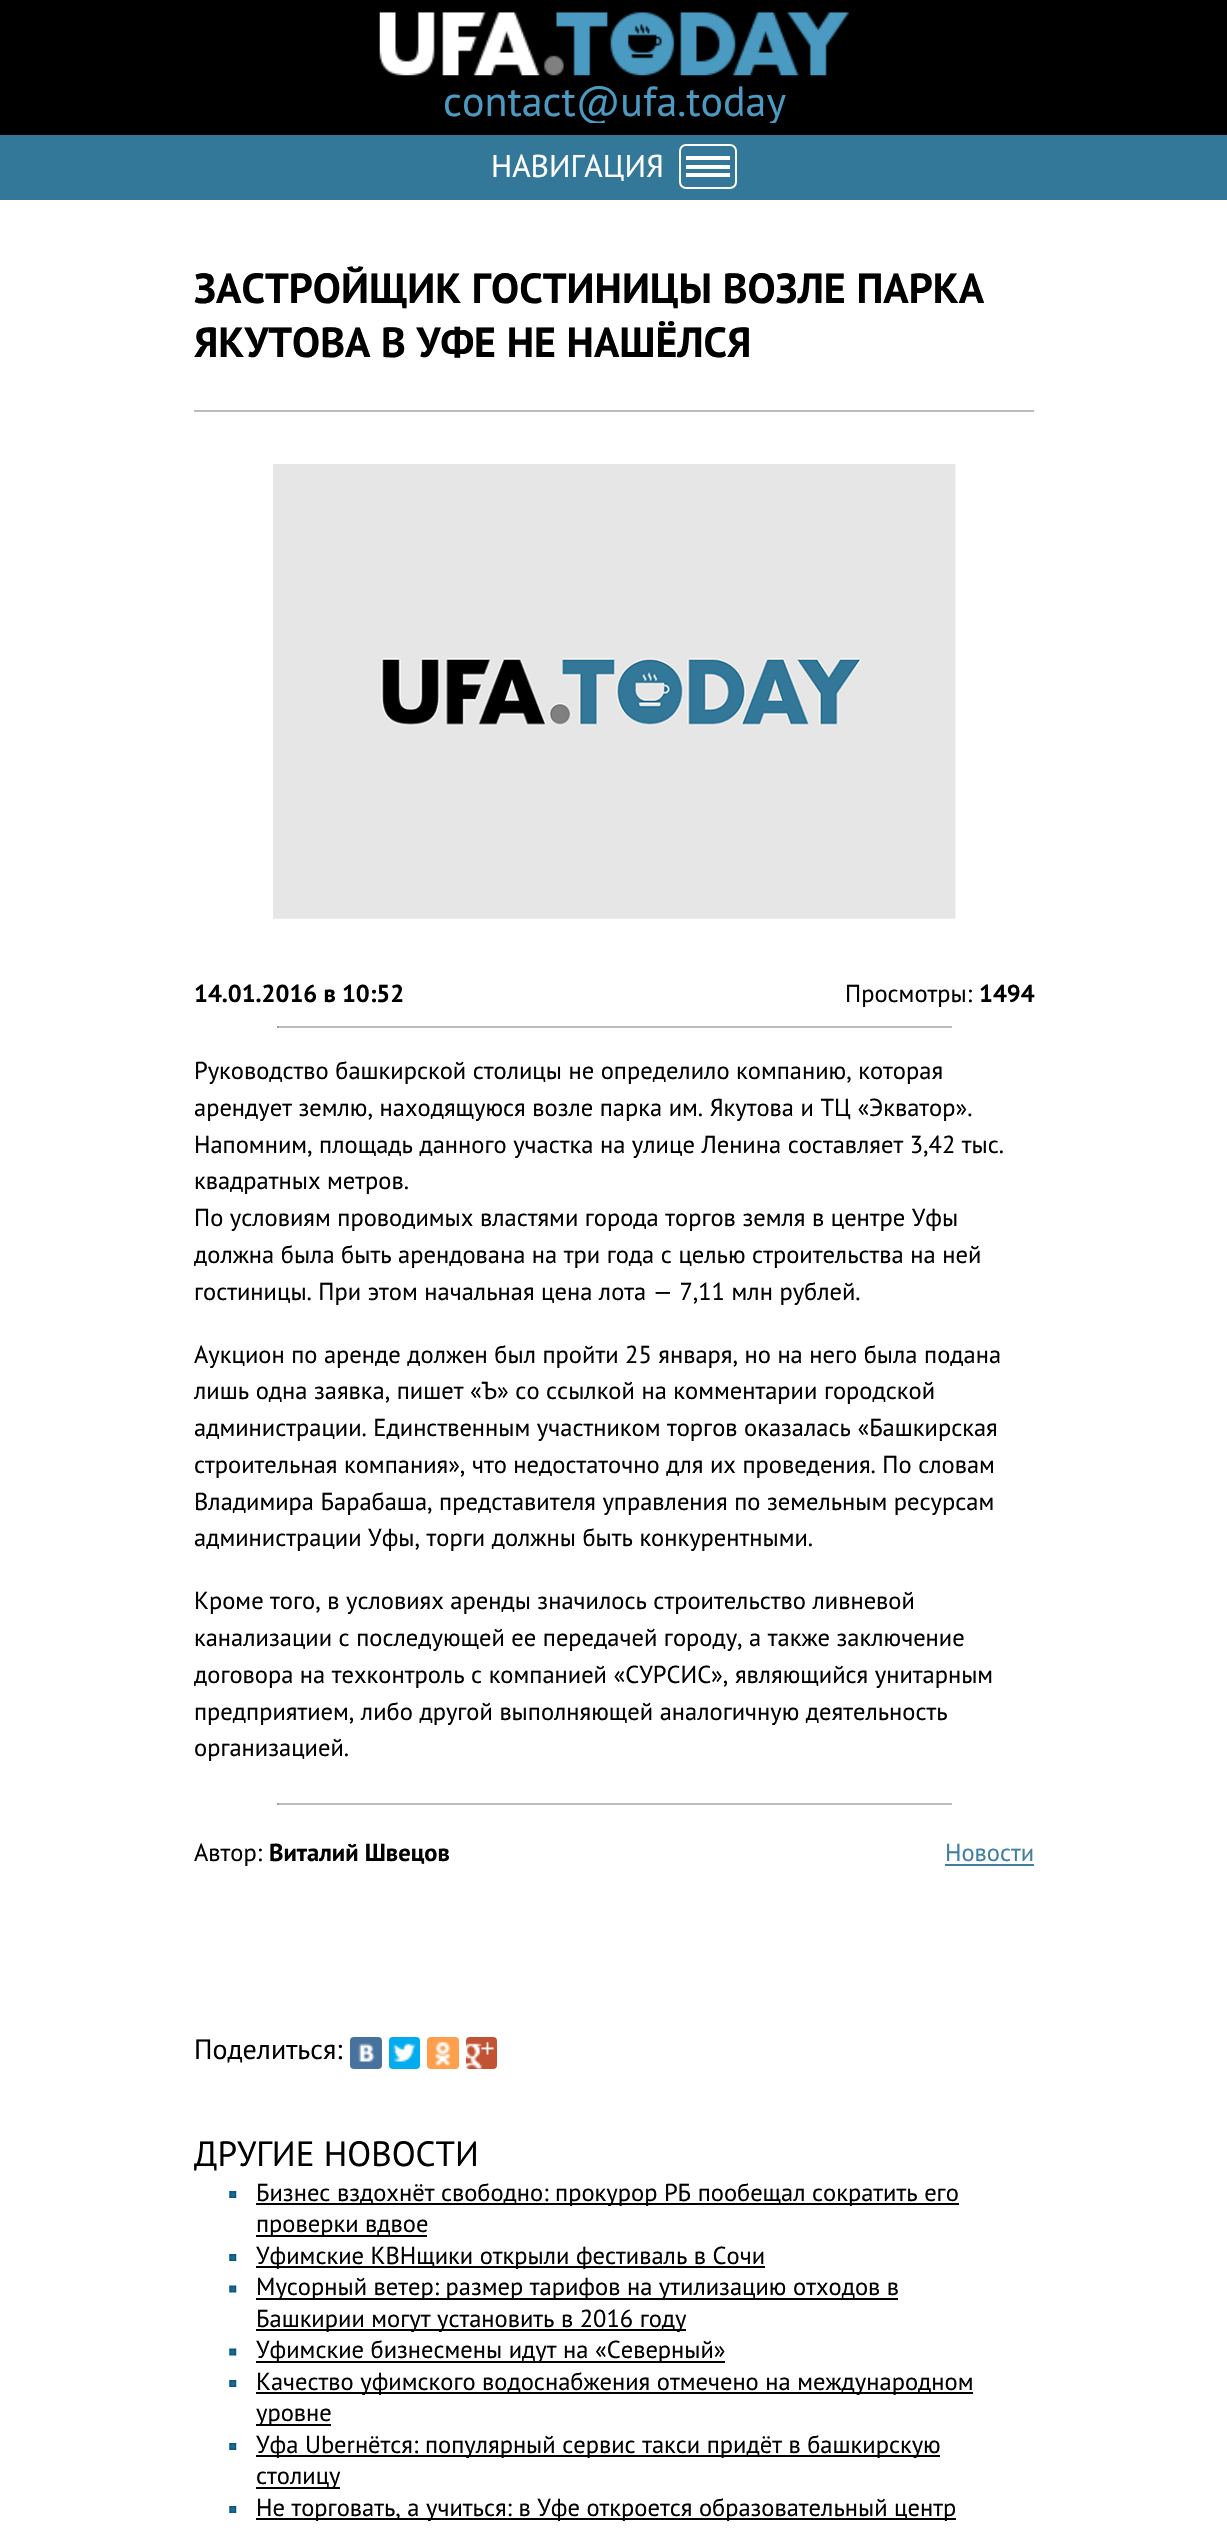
static SkFont makeFont(const char* family, int weight, float size, bool italic = false) {
  SkFontStyle style(weight, SkFontStyle::kNormal_Width,
    italic ? SkFontStyle::kItalic_Slant : SkFontStyle::kUpright_Slant);
  SkFont result(fontMgr->matchFamilyStyle(family, style), size);
  result.setSubpixel(true);
  return result;
}

static void text(SkCanvas* c, const char* s, float x, float y, const SkFont& font, SkColor color) {
  SkPaint ink(SkColor4f::FromColor(color));
  ink.setAntiAlias(true);
  c->drawString(s, x, y, font, ink);
}

static void box(SkCanvas* c, float l, float t, float r, float b, SkColor color) {
  SkPaint ink(SkColor4f::FromColor(color));
  ink.setAntiAlias(true);
  c->drawRect(SkRect::MakeLTRB(l, t, r, b), ink);
}

static void roundBox(SkCanvas* c, float l, float t, float r, float b, float radius, SkColor color) {
  SkPaint ink(SkColor4f::FromColor(color));
  ink.setAntiAlias(true);
  c->drawRoundRect(SkRect::MakeLTRB(l, t, r, b), radius, radius, ink);
}

static void picture(SkCanvas* c, const char* path, float l, float t, float r, float b) {
  auto image = SkImages::DeferredFromEncodedData(SkData::MakeFromFileName(path));
  c->drawImageRect(image, SkRect::MakeLTRB(l, t, r, b), SkSamplingOptions());
}

void draw(SkCanvas* c) {
  SkPaint paint;
  paint.setAntiAlias(true);
  c->clear(0xffffffff);
  box(c, 0, 0, 1227, 135, 0xff000000);
  picture(c, "img_01.png", 379, 12, 849, 76);
  c->save();
  c->clipRect(SkRect::MakeLTRB(194, 12, 1034, 123));
  SkFont face1 = makeFont("PT Sans", 400, 42);
  text(c, "contact@ufa.today", 443, 116, face1, 0xff4a9ac2);
  c->restore();
  box(c, 0, 135, 1227, 200, 0xff337799);
  SkFont face2 = makeFont("PT Sans", 400, 31.5f);
  text(c, "НАВИГАЦИЯ", 491, 177, face2, 0xffffffff);
  paint.setStyle(SkPaint::kStroke_Style);
  paint.setStrokeWidth(2);
  paint.setColor(0xffffffff);
  c->drawRoundRect(SkRect::MakeLTRB(680, 145, 736, 188), 6, 6, paint);
  box(c, 686, 156, 730, 160, 0xffffffff);
  box(c, 686, 165, 730, 169, 0xffffffff);
  box(c, 686, 173, 730, 177, 0xffffffff);
  box(c, 194, 410, 1034, 412, 0xffbcbcbc);
  SkFont face3 = makeFont("PT Sans", 700, 42);
  text(c, "ЗАСТРОЙЩИК ГОСТИНИЦЫ ВОЗЛЕ ПАРКА", 194, 303, face3, 0xff000000);
  text(c, "ЯКУТОВА В УФЕ НЕ НАШЁЛСЯ", 194, 357, face3, 0xff000000);
  picture(c, "img_02.png", 273, 464, 956, 919);
  SkFont face4 = makeFont("PT Sans", 700, 24.5f);
  text(c, "14.01.2016 в 10:52", 194, 1002, face4, 0xff000000);
  SkFont face5 = makeFont("PT Sans", 400, 24.5f);
  text(c, "Просмотры:", 845, 1002, face5, 0xff000000);
  text(c, "1494", 979, 1002, face4, 0xff000000);
  box(c, 277, 1026, 952, 1028, 0xffbcbcbc);
  box(c, 277, 1026, 279, 1028, 0xff9f9f9f);
  text(c, "Руководство башкирской столицы не определило компанию, которая", 194, 1079, face5, 0xff000000);
  text(c, "арендует землю, находящуюся возле парка им. Якутова и ТЦ «Экватор».", 194, 1116, face5, 0xff000000);
  text(c, "Напомним, площадь данного участка на улице Ленина составляет 3,42 тыс.", 194, 1153, face5, 0xff000000);
  text(c, "квадратных метров.", 194, 1189, face5, 0xff000000);
  text(c, "По условиям проводимых властями города торгов земля в центре Уфы", 194, 1226, face5, 0xff000000);
  text(c, "должна была быть арендована на три года с целью строительства на ней", 194, 1263, face5, 0xff000000);
  text(c, "гостиницы. При этом начальная цена лота — 7,11 млн рублей.", 194, 1300, face5, 0xff000000);
  text(c, "Аукцион по аренде должен был пройти 25 января, но на него была подана", 194, 1363, face5, 0xff000000);
  text(c, "лишь одна заявка, пишет «Ъ» со ссылкой на комментарии городской", 194, 1399, face5, 0xff000000);
  text(c, "администрации. Единственным участником торгов оказалась «Башкирская", 194, 1436, face5, 0xff000000);
  text(c, "строительная компания», что недостаточно для их проведения. По словам", 194, 1473, face5, 0xff000000);
  text(c, "Владимира Барабаша, представителя управления по земельным ресурсам", 194, 1510, face5, 0xff000000);
  text(c, "администрации Уфы, торги должны быть конкурентными.", 194, 1546, face5, 0xff000000);
  text(c, "Кроме того, в условиях аренды значилось строительство ливневой", 194, 1609, face5, 0xff000000);
  text(c, "канализации с последующей ее передачей городу, а также заключение", 194, 1646, face5, 0xff000000);
  text(c, "договора на техконтроль с компанией «СУРСИС», являющийся унитарным", 194, 1683, face5, 0xff000000);
  text(c, "предприятием, либо другой выполняющей аналогичную деятельность", 194, 1720, face5, 0xff000000);
  text(c, "организацией.", 194, 1756, face5, 0xff000000);
  box(c, 277, 1803, 952, 1805, 0xffbcbcbc);
  box(c, 277, 1803, 279, 1805, 0xff9f9f9f);
  text(c, "Автор:", 194, 1861, face5, 0xff000000);
  text(c, "Виталий Швецов", 269, 1861, face4, 0xff000000);
  text(c, "Новости", 945, 1861, face5, 0xff407f9f);
  box(c, 945, 1864, 1034, 1866, 0xff407f9f);
  SkFont face6 = makeFont("PT Sans", 400, 28);
  text(c, "Поделиться:", 194, 2059, face6, 0xff000000);
  roundBox(c, 350, 2037, 382, 2069, 4, 0xff48729e);
  picture(c, "img_03.png", 358, 2043, 375, 2062);
  roundBox(c, 389, 2037, 420, 2069, 4, 0xff00aced);
  picture(c, "img_04.png", 393, 2043, 416, 2062);
  roundBox(c, 427, 2037, 459, 2069, 4, 0xffff9f4d);
  picture(c, "img_05.png", 435, 2041, 451, 2066);
  roundBox(c, 466, 2037, 497, 2069, 4, 0xffc25234);
  picture(c, "img_06.png", 466, 2041, 494, 2069);
  SkFont face7 = makeFont("PT Sans", 400, 35);
  text(c, "ДРУГИЕ НОВОСТИ", 194, 2166, face7, 0xff000000);
  picture(c, "img_07.png", 229, 2191, 237, 2198);
  box(c, 256, 2203, 959, 2205, 0xff010101);
  text(c, "Бизнес вздохнёт свободно: прокурор РБ пообещал сократить его", 256, 2201, face5, 0xff000000);
  box(c, 256, 2235, 427, 2237, 0xff010101);
  text(c, "проверки вдвое", 256, 2232, face5, 0xff000000);
  picture(c, "img_07.png", 229, 2254, 237, 2261);
  box(c, 256, 2266, 765, 2268, 0xff010101);
  text(c, "Уфимские КВНщики открыли фестиваль в Сочи", 256, 2264, face5, 0xff000000);
  picture(c, "img_08.png", 229, 2285, 237, 2293);
  box(c, 256, 2298, 898, 2300, 0xff010101);
  text(c, "Мусорный ветер: размер тарифов на утилизацию отходов в", 256, 2295, face5, 0xff000000);
  box(c, 256, 2329, 686, 2331, 0xff010101);
  text(c, "Башкирии могут установить в 2016 году", 256, 2327, face5, 0xff000000);
  picture(c, "img_08.png", 229, 2348, 237, 2356);
  box(c, 256, 2361, 725, 2363, 0xff010101);
  text(c, "Уфимские бизнесмены идут на «Северный»", 256, 2358, face5, 0xff000000);
  picture(c, "img_07.png", 229, 2380, 237, 2387);
  box(c, 256, 2392, 973, 2394, 0xff010101);
  text(c, "Качество уфимского водоснабжения отмечено на международном", 256, 2390, face5, 0xff000000);
  box(c, 256, 2424, 331, 2426, 0xff010101);
  text(c, "уровне", 256, 2421, face5, 0xff000000);
  picture(c, "img_07.png", 229, 2443, 237, 2450);
  box(c, 256, 2455, 940, 2457, 0xff010101);
  text(c, "Уфа Uberнётся: популярный сервис такси придёт в башкирскую", 256, 2453, face5, 0xff000000);
  box(c, 256, 2487, 340, 2489, 0xff010101);
  text(c, "столицу", 256, 2484, face5, 0xff000000);
  picture(c, "img_07.png", 229, 2506, 237, 2513);
  box(c, 256, 2518, 956, 2520, 0xff010101);
  text(c, "Не торговать, а учиться: в Уфе откроется образовательный центр", 256, 2516, face5, 0xff000000);
}
